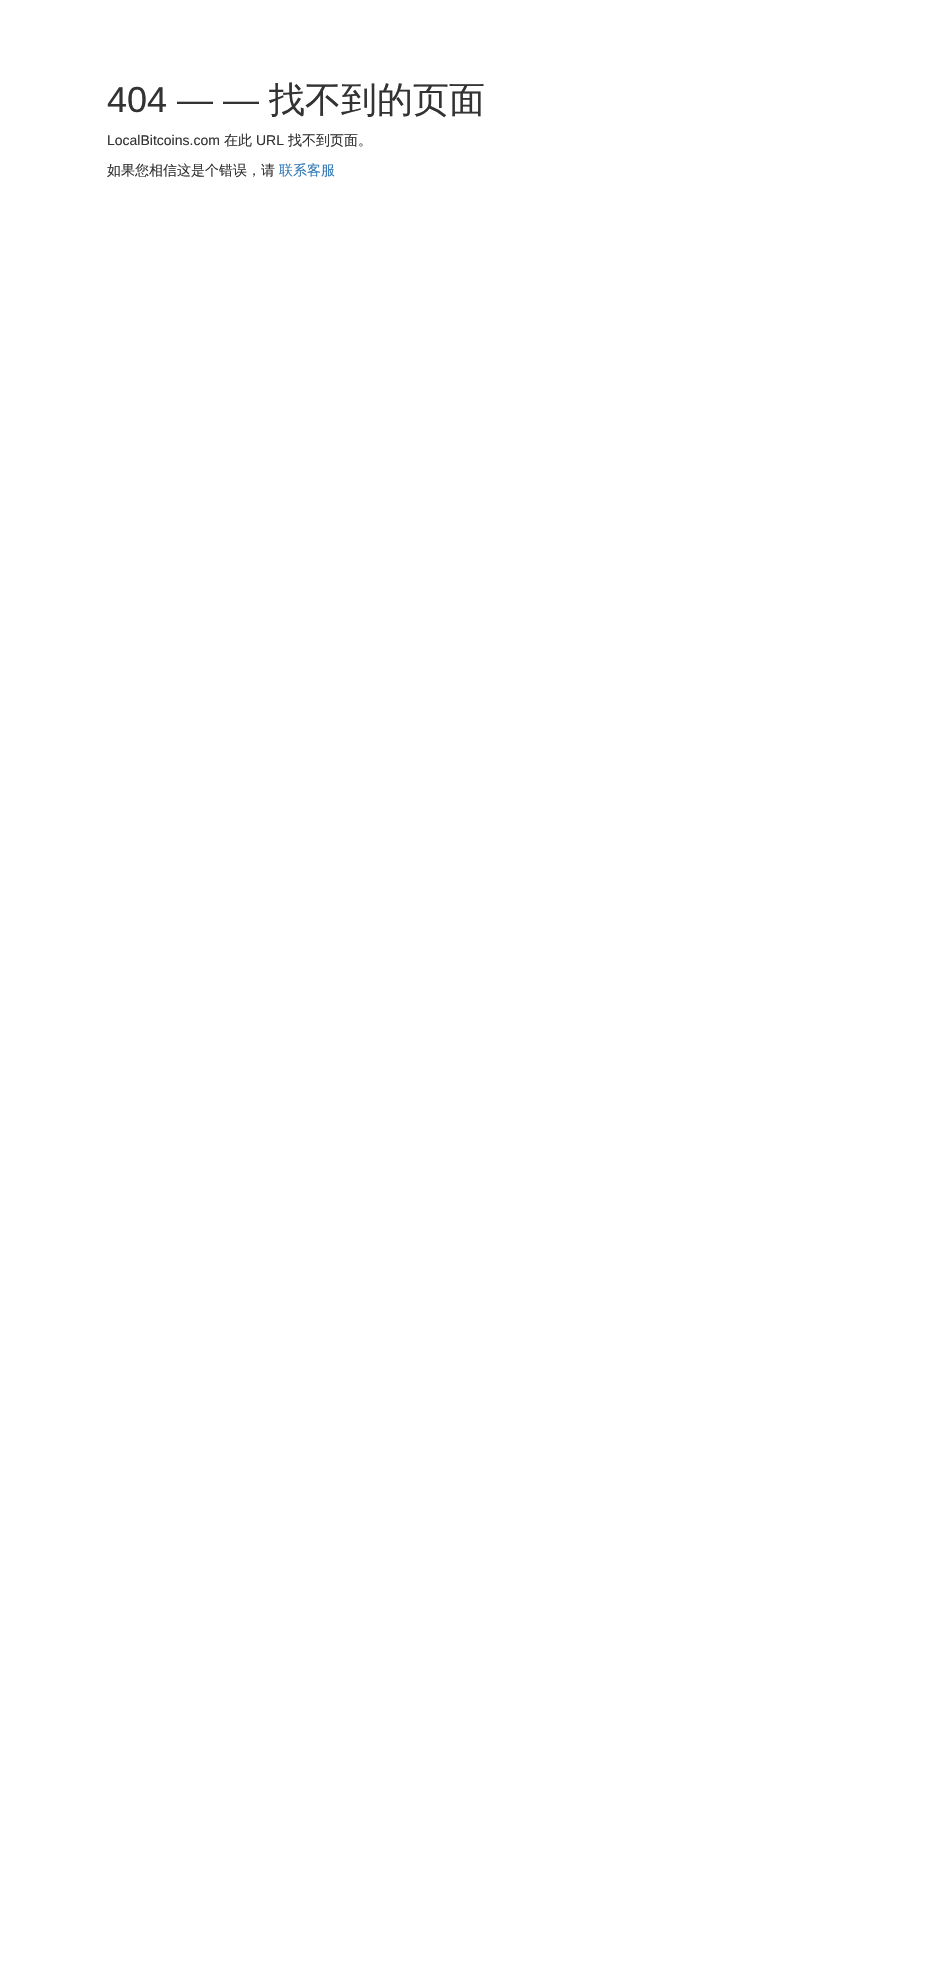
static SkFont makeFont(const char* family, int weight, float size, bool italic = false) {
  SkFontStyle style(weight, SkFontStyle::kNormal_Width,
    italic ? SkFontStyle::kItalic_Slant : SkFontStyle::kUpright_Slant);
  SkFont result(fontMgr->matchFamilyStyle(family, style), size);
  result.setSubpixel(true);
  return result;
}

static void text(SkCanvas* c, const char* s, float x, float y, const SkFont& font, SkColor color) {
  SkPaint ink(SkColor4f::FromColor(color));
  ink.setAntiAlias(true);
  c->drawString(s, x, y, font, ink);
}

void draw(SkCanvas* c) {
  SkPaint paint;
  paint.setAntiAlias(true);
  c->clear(0xffffffff);
  SkFont face1 = makeFont("Liberation Sans", 400, 36);
  text(c, "404 — —", 107, 112, face1, 0xff333333);
  SkFont face2 = makeFont("WenQuanYi Zen Hei", 500, 36);
  text(c, "找不到的页面", 269, 112, face2, 0xff333333);
  SkFont face3 = makeFont("Liberation Sans", 400, 14);
  text(c, "LocalBitcoins.com", 107, 145, face3, 0xff333333);
  SkFont face4 = makeFont("WenQuanYi Zen Hei", 500, 14);
  text(c, "在此", 224, 145, face4, 0xff333333);
  text(c, "URL", 256, 145, face3, 0xff333333);
  text(c, "找不到页面。", 288, 145, face4, 0xff333333);
  text(c, "如果您相信这是个错误，请", 107, 175, face4, 0xff333333);
  text(c, "联系客服", 279, 175, face4, 0xff337ab7);
}
